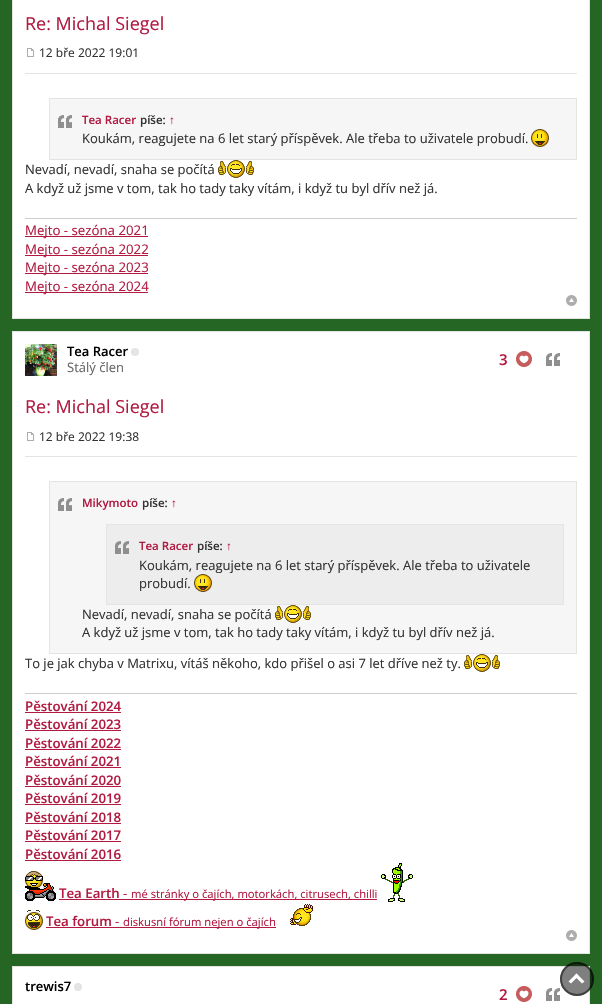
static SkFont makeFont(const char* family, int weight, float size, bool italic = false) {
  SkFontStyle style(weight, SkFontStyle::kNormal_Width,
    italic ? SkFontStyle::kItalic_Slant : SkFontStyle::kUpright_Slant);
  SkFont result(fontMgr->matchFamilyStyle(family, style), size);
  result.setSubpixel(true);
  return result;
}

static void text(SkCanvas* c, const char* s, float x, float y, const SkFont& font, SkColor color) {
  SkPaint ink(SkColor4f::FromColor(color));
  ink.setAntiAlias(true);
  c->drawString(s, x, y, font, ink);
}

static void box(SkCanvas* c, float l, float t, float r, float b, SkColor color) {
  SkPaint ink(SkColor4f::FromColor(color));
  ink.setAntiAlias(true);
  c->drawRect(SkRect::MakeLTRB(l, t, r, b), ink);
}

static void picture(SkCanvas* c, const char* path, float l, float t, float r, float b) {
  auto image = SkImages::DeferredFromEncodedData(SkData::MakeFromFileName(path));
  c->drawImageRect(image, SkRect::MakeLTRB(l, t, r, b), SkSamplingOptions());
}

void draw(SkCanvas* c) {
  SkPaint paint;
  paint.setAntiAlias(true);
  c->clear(0xff256625);
  paint.setColor(0xffffffff);
  c->drawRect(SkRect::MakeLTRB(12.5f, -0.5f, 589.5f, 318.5f), paint);
  paint.setStyle(SkPaint::kStroke_Style);
  paint.setStrokeWidth(1);
  paint.setColor(0xffe4e4e4);
  c->drawRect(SkRect::MakeLTRB(12.5f, -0.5f, 589.5f, 318.5f), paint);
  SkFont face1 = makeFont("Open Sans", 400, 18);
  text(c, "Re: Michal Siegel", 25, 30, face1, 0xffb21a41);
  picture(c, "img_01.png", 27, 48, 34, 57);
  SkFont face2 = makeFont("Open Sans", 400, 12);
  text(c, "12 bře 2022 19:01", 39, 57, face2, 0xff333333);
  box(c, 25, 73, 577, 74, 0xffe4e4e4);
  box(c, 50, 99, 576, 159, 0xfff6f6f6);
  picture(c, "img_02.png", 58, 115, 72, 128);
  c->drawRect(SkRect::MakeLTRB(49.5f, 98.5f, 576.5f, 159.5f), paint);
  SkFont face3 = makeFont("Open Sans", 600, 11.5f);
  text(c, "Tea Racer", 82, 124, face3, 0xffb21a41);
  text(c, "píše:", 140, 124, face3, 0xff333333);
  SkFont face4 = makeFont("Liberation Sans", 700, 11.5f);
  text(c, "↑", 169, 124, face4, 0xffb21a41);
  SkFont face5 = makeFont("Open Sans", 400, 13);
  text(c, "Koukám, reagujete na 6 let starý příspěvek. Ale třeba to uživatele probudí.", 82, 143, face5, 0xff333333);
  picture(c, "img_03.png", 531, 129, 549, 147);
  text(c, "Nevadí, nevadí, snaha se počítá", 25, 174, face5, 0xff333333);
  picture(c, "img_04.png", 218, 160, 254, 178);
  text(c, "A když už jsme v tom, tak ho tady taky vítám, i když tu byl dřív než já.", 25, 193, face5, 0xff333333);
  box(c, 25, 218, 577, 219, 0xffcccccc);
  box(c, 25, 236, 148, 237, 0xffb21a41);
  SkFont face6 = makeFont("Open Sans", 400, 13.25f);
  text(c, "Mejto - sezóna 2021", 25, 235, face6, 0xffb21a41);
  box(c, 25, 255, 148, 256, 0xffb21a41);
  text(c, "Mejto - sezóna 2022", 25, 254, face6, 0xffb21a41);
  box(c, 25, 273, 148, 274, 0xffb21a41);
  text(c, "Mejto - sezóna 2023", 25, 272, face6, 0xffb21a41);
  box(c, 25, 292, 148, 293, 0xffb21a41);
  text(c, "Mejto - sezóna 2024", 25, 291, face6, 0xffb21a41);
  picture(c, "img_05.png", 566, 295, 577, 306);
  paint.setStyle(SkPaint::kFill_Style);
  paint.setColor(0xffffffff);
  c->drawRect(SkRect::MakeLTRB(12.5f, 331.5f, 589.5f, 953.5f), paint);
  paint.setStyle(SkPaint::kStroke_Style);
  paint.setColor(0xffe4e4e4);
  c->drawRect(SkRect::MakeLTRB(12.5f, 331.5f, 589.5f, 953.5f), paint);
  picture(c, "img_06.png", 25, 344, 57, 376);
  SkFont face7 = makeFont("Open Sans", 600, 13);
  text(c, "Tea Racer", 67, 356, face7, 0xff000000);
  paint.setStyle(SkPaint::kFill_Style);
  c->drawCircle(135, 352, 4, paint);
  text(c, "Stálý člen", 67, 372, face5, 0xff666666);
  SkFont face8 = makeFont("Open Sans", 600, 15);
  text(c, "3", 499, 365, face8, 0xffb21a41);
  picture(c, "img_07.png", 516, 351, 532, 367);
  picture(c, "img_08.png", 546, 352, 560, 366);
  text(c, "Re: Michal Siegel", 25, 413, face1, 0xffb21a41);
  picture(c, "img_01.png", 27, 432, 34, 441);
  text(c, "12 bře 2022 19:38", 39, 441, face2, 0xff333333);
  box(c, 25, 456, 577, 457, 0xffe4e4e4);
  box(c, 50, 482, 576, 653, 0xfff6f6f6);
  picture(c, "img_02.png", 58, 498, 72, 511);
  paint.setStyle(SkPaint::kStroke_Style);
  c->drawRect(SkRect::MakeLTRB(49.5f, 481.5f, 576.5f, 653.5f), paint);
  text(c, "Mikymoto", 82, 507, face3, 0xffb21a41);
  text(c, "píše:", 142, 507, face3, 0xff333333);
  text(c, "↑", 171, 507, face4, 0xffb21a41);
  box(c, 107, 525, 563, 604, 0xffededed);
  picture(c, "img_09.png", 115, 541, 129, 554);
  c->drawRect(SkRect::MakeLTRB(106.5f, 524.5f, 563.5f, 604.5f), paint);
  text(c, "Tea Racer", 139, 550, face3, 0xffb21a41);
  text(c, "píše:", 197, 550, face3, 0xff333333);
  text(c, "↑", 226, 550, face4, 0xffb21a41);
  text(c, "Koukám, reagujete na 6 let starý příspěvek. Ale třeba to uživatele", 139, 570, face5, 0xff333333);
  text(c, "probudí.", 139, 588, face5, 0xff333333);
  picture(c, "img_10.png", 194, 574, 212, 592);
  text(c, "Nevadí, nevadí, snaha se počítá", 82, 619, face5, 0xff333333);
  picture(c, "img_11.png", 275, 605, 311, 623);
  text(c, "A když už jsme v tom, tak ho tady taky vítám, i když tu byl dřív než já.", 82, 637, face5, 0xff333333);
  text(c, "To je jak chyba v Matrixu, vítáš někoho, kdo přišel o asi 7 let dříve než ty.", 25, 668, face5, 0xff333333);
  picture(c, "img_04.png", 464, 654, 500, 672);
  box(c, 25, 693, 577, 694, 0xffcccccc);
  SkFont face9 = makeFont("Open Sans", 600, 13.25f);
  text(c, "Pěstování 2024", 25, 711, face9, 0xffb21a41);
  box(c, 25, 712, 121, 713, 0xffb21a41);
  text(c, "Pěstování 2023", 25, 729, face9, 0xffb21a41);
  box(c, 25, 730, 121, 731, 0xffb21a41);
  text(c, "Pěstování 2022", 25, 748, face9, 0xffb21a41);
  box(c, 25, 749, 121, 750, 0xffb21a41);
  text(c, "Pěstování 2021", 25, 766, face9, 0xffb21a41);
  box(c, 25, 767, 121, 768, 0xffb21a41);
  text(c, "Pěstování 2020", 25, 785, face9, 0xffb21a41);
  box(c, 25, 786, 121, 787, 0xffb21a41);
  text(c, "Pěstování 2019", 25, 803, face9, 0xffb21a41);
  box(c, 25, 804, 121, 805, 0xffb21a41);
  text(c, "Pěstování 2018", 25, 822, face9, 0xffb21a41);
  box(c, 25, 823, 121, 824, 0xffb21a41);
  text(c, "Pěstování 2017", 25, 840, face9, 0xffb21a41);
  box(c, 25, 841, 121, 842, 0xffb21a41);
  text(c, "Pěstování 2016", 25, 859, face9, 0xffb21a41);
  box(c, 25, 860, 121, 861, 0xffb21a41);
  picture(c, "img_12.png", 25, 871, 56, 901);
  text(c, "Tea Earth", 59, 898, face9, 0xffb21a41);
  text(c, "-", 123, 898, face6, 0xffb21a41);
  box(c, 59, 899, 377, 900, 0xffb21a41);
  SkFont face10 = makeFont("Open Sans", 400, 11.25f);
  text(c, "mé stránky o čajích, motorkách, citrusech, chilli", 131, 898, face10, 0xffb21a41);
  picture(c, "img_13.png", 381, 863, 413, 902);
  picture(c, "img_14.png", 25, 910, 43, 930);
  text(c, "Tea forum", 46, 926, face9, 0xffb21a41);
  text(c, "-", 115, 926, face6, 0xffb21a41);
  box(c, 46, 927, 276, 928, 0xffb21a41);
  text(c, "diskusní fórum nejen o čajích", 123, 926, face10, 0xffb21a41);
  picture(c, "img_15.png", 290, 904, 313, 926);
  picture(c, "img_05.png", 566, 930, 577, 941);
  paint.setStyle(SkPaint::kFill_Style);
  paint.setColor(0xffffffff);
  c->drawRect(SkRect::MakeLTRB(12.5f, 966.5f, 589.5f, 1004.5f), paint);
  paint.setStyle(SkPaint::kStroke_Style);
  paint.setColor(0xffe4e4e4);
  c->drawRect(SkRect::MakeLTRB(12.5f, 966.5f, 589.5f, 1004.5f), paint);
  text(c, "trewis7", 25, 991, face7, 0xff000000);
  paint.setStyle(SkPaint::kFill_Style);
  c->drawCircle(78, 987, 4, paint);
  text(c, "2", 499, 1000, face8, 0xffb21a41);
  picture(c, "img_07.png", 516, 986, 532, 1002);
  picture(c, "img_08.png", 546, 987, 560, 1001);
  paint.setColor(0x80000000);
  c->drawCircle(577, 979, 17, paint);
  paint.setStyle(SkPaint::kStroke_Style);
  paint.setStrokeWidth(2);
  c->drawCircle(577, 979, 16, paint);
  paint.setStyle(SkPaint::kFill_Style);
  paint.setColor(0xffffffff);
  c->drawPath(SkPathBuilder().moveTo(578.5f, 976).lineTo(571, 983.5f).lineTo(568.5f, 981.5f).lineTo(576.5f, 973.5f).close().detach(), paint);
  c->drawPath(SkPathBuilder().moveTo(584.5f, 981.5f).lineTo(582, 983.5f).lineTo(574.5f, 976).lineTo(576.5f, 973.5f).close().detach(), paint);
}
